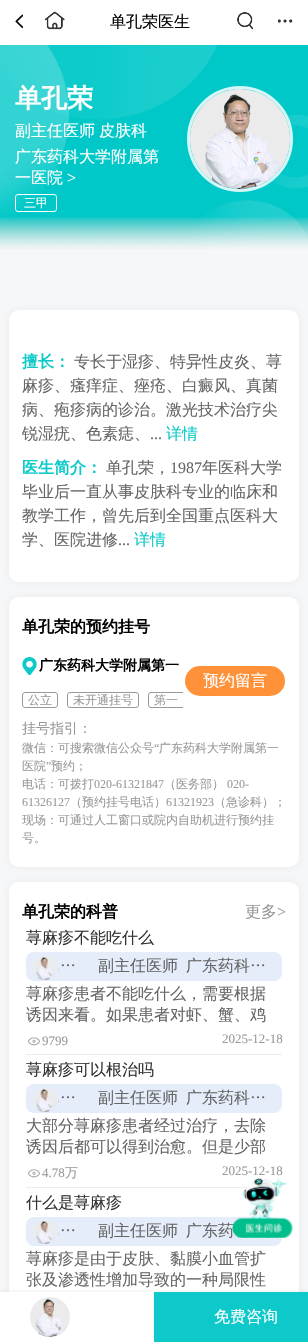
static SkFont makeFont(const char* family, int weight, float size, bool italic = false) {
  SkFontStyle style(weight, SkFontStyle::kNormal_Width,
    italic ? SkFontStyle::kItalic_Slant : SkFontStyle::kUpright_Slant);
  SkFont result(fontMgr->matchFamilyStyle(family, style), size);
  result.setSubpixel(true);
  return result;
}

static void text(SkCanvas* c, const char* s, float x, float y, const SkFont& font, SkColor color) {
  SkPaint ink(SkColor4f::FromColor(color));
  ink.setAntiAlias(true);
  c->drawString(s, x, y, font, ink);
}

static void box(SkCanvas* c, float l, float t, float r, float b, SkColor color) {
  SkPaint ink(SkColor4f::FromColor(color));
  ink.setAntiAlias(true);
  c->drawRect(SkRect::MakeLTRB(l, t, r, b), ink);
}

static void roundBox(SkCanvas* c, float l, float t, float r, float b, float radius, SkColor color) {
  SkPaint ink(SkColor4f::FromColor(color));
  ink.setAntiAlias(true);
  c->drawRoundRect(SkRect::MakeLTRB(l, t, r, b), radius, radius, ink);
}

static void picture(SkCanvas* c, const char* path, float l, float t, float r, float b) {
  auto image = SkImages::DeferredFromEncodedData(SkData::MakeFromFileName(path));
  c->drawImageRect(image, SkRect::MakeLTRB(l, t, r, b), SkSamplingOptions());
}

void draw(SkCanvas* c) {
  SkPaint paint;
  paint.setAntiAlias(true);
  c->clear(0xfff6f7f9);
  box(c, 0, 0, 308, 45, 0xffffffff);
  picture(c, "img_01.png", 15, 14, 23, 28);
  picture(c, "img_02.png", 44, 11, 65, 30);
  SkFont face1 = makeFont("WenQuanYi Zen Hei", 500, 16);
  text(c, "单孔荣医生", 110, 27, face1, 0xff000000);
  picture(c, "img_03.png", 237, 12, 254, 30);
  picture(c, "img_04.png", 277, 19, 293, 23);
  picture(c, "img_05.png", 0, 45, 308, 250);
  SkFont face2 = makeFont("WenQuanYi Zen Hei", 700, 26);
  text(c, "单孔荣", 15, 107, face2, 0xffffffff);
  text(c, "副主任医师", 15, 136, face1, 0xffffffff);
  text(c, "皮肤科", 99, 136, face1, 0xffffffff);
  text(c, "广东药科大学附属第", 15, 162, face1, 0xffffffff);
  text(c, "一医院", 15, 183, face1, 0xffffffff);
  SkFont face3 = makeFont("Liberation Serif", 400, 16);
  text(c, ">", 67, 183, face3, 0xffffffff);
  paint.setStyle(SkPaint::kStroke_Style);
  paint.setStrokeWidth(1);
  paint.setColor(0xffffffff);
  c->drawRoundRect(SkRect::MakeLTRB(15.5f, 194.5f, 56.5f, 211.5f), 2.5f, 2.5f, paint);
  SkFont face4 = makeFont("WenQuanYi Zen Hei", 500, 12);
  text(c, "三甲", 24, 207, face4, 0xffffffff);
  paint.setStrokeWidth(3);
  paint.setColor(0xffd5f6f6);
  c->drawCircle(240, 139, 51.5f, paint);
  picture(c, "img_06.png", 190, 89, 290, 189);
  paint.setStyle(SkPaint::kFill_Style);
  paint.setColor(0x1a7e7e7e);
  paint.setMaskFilter(SkMaskFilter::MakeBlur(kNormal_SkBlurStyle, 5));
  c->drawRoundRect(SkRect::MakeLTRB(9, 597, 299, 867), 10, 10, paint);
  paint.setMaskFilter(nullptr);
  roundBox(c, 9, 597, 299, 867, 10, 0xffffffff);
  paint.setMaskFilter(SkMaskFilter::MakeBlur(kNormal_SkBlurStyle, 5));
  c->drawRoundRect(SkRect::MakeLTRB(9, 310, 299, 582), 10, 10, paint);
  paint.setMaskFilter(nullptr);
  roundBox(c, 9, 310, 299, 582, 10, 0xffffffff);
  SkFont face5 = makeFont("WenQuanYi Zen Hei", 700, 16);
  text(c, "擅长：", 22, 367, face5, 0xff0dc9c9);
  text(c, "专长于湿疹、特异性皮炎、荨", 74, 367, face1, 0xff666666);
  text(c, "麻疹、瘙痒症、痤疮、白癜风、真菌", 22, 391, face1, 0xff666666);
  text(c, "病、疱疹病的诊治。激光技术治疗尖", 22, 415, face1, 0xff666666);
  text(c, "锐湿疣、色素痣、", 22, 439, face1, 0xff666666);
  text(c, "...", 150, 439, face3, 0xff666666);
  text(c, "详情", 166, 439, face1, 0xff0dc9c9);
  text(c, "医生简介：", 22, 473, face5, 0xff0dc9c9);
  text(c, "单孔荣，", 106, 473, face1, 0xff666666);
  text(c, "1987", 170, 473, face3, 0xff666666);
  text(c, "年医科大学", 202, 473, face1, 0xff666666);
  text(c, "毕业后一直从事皮肤科专业的临床和", 22, 497, face1, 0xff666666);
  text(c, "教学工作，曾先后到全国重点医科大", 22, 521, face1, 0xff666666);
  text(c, "学、医院进修", 22, 545, face1, 0xff666666);
  text(c, "...", 118, 545, face3, 0xff666666);
  text(c, "详情", 134, 545, face1, 0xff0dc9c9);
  text(c, "单孔荣的预约挂号", 22, 632, face5, 0xff000000);
  picture(c, "img_07.png", 22, 657, 37, 675);
  SkFont face6 = makeFont("WenQuanYi Zen Hei", 700, 14);
  text(c, "广东药科大学附属第一", 39, 670, face6, 0xff000000);
  paint.setStyle(SkPaint::kStroke_Style);
  paint.setStrokeWidth(1);
  paint.setColor(0xff999999);
  c->drawRoundRect(SkRect::MakeLTRB(22.5f, 692.5f, 57.5f, 707.5f), 2.5f, 2.5f, paint);
  text(c, "公立", 28, 704, face4, 0xff999999);
  c->drawRoundRect(SkRect::MakeLTRB(67.5f, 692.5f, 138.5f, 707.5f), 2.5f, 2.5f, paint);
  text(c, "未开通挂号", 73, 704, face4, 0xff999999);
  roundBox(c, 185, 666, 285, 696, 15, 0xffff9139);
  c->save();
  c->clipRect(SkRect::MakeLTRB(22, 685, 183, 714));
  c->drawRoundRect(SkRect::MakeLTRB(148.5f, 692.5f, 207.5f, 707.5f), 2.5f, 2.5f, paint);
  c->restore();
  text(c, "第一", 154, 704, face4, 0xff999999);
  text(c, "预约留言", 203, 686, face1, 0xffffffff);
  SkFont face7 = makeFont("WenQuanYi Zen Hei", 500, 14);
  text(c, "挂号指引：", 22, 733, face7, 0xff999999);
  text(c, "微信：可搜索微信公众号", 22, 752, face4, 0xff999999);
  SkFont face8 = makeFont("Liberation Serif", 400, 12);
  text(c, "“", 154, 752, face8, 0xff999999);
  text(c, "广东药科大学附属第一", 159, 752, face4, 0xff999999);
  text(c, "医院", 22, 770, face4, 0xff999999);
  text(c, "”", 46, 770, face8, 0xff999999);
  text(c, "预约；", 51, 770, face4, 0xff999999);
  text(c, "电话：可拨打", 22, 788, face4, 0xff999999);
  text(c, "020-61321847", 94, 788, face8, 0xff999999);
  text(c, "（医务部）", 164, 788, face4, 0xff999999);
  text(c, "020-", 227, 788, face8, 0xff999999);
  text(c, "61326127", 22, 806, face8, 0xff999999);
  text(c, "（预约挂号电话）", 70, 806, face4, 0xff999999);
  text(c, "61321923", 166, 806, face8, 0xff999999);
  text(c, "（急诊科）；", 214, 806, face4, 0xff999999);
  c->save();
  c->clipRect(SkRect::MakeLTRB(22, 719, 286, 847));
  text(c, "现场：可通过人工窗口或院内自助机进行预约挂", 22, 824, face4, 0xff999999);
  c->restore();
  text(c, "号。", 22, 842, face4, 0xff999999);
  paint.setStyle(SkPaint::kFill_Style);
  paint.setColor(0x1a7e7e7e);
  paint.setMaskFilter(SkMaskFilter::MakeBlur(kNormal_SkBlurStyle, 5));
  c->drawRoundRect(SkRect::MakeLTRB(9, 882, 299, 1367), 10, 10, paint);
  paint.setMaskFilter(nullptr);
  roundBox(c, 9, 882, 299, 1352, 10, 0xffffffff);
  text(c, "单孔荣的科普", 22, 917, face5, 0xff000000);
  text(c, "更多", 245, 917, face1, 0xff999999);
  text(c, ">", 277, 917, face3, 0xff999999);
  box(c, 26, 1054, 282, 1055, 0xffececec);
  text(c, "荨麻疹不能吃什么", 26, 943, face1, 0xff333333);
  roundBox(c, 26, 952, 282, 981, 8, 0xffe6edfa);
  picture(c, "img_08.png", 33, 956, 57, 980);
  text(c, "…", 60, 971, face1, 0xff666666);
  box(c, 58, 968, 59, 971, 0xffd8d8d8);
  text(c, "副主任医师", 98, 971, face1, 0xff666666);
  text(c, "广东药科…", 186, 971, face1, 0xff666666);
  text(c, "荨麻疹患者不能吃什么，需要根据", 26, 999, face1, 0xff666666);
  text(c, "诱因来看。如果患者对虾、蟹、鸡", 26, 1020, face1, 0xff666666);
  picture(c, "img_09.png", 27, 1037, 41, 1046);
  SkFont face9 = makeFont("Liberation Serif", 400, 13);
  text(c, "9799", 42, 1045, face9, 0xff999999);
  text(c, "2025-12-18", 222, 1043, face9, 0xff999999);
  box(c, 26, 1187, 282, 1188, 0xffececec);
  text(c, "荨麻疹可以根治吗", 26, 1075, face1, 0xff333333);
  roundBox(c, 26, 1084, 282, 1113, 8, 0xffe6edfa);
  picture(c, "img_08.png", 33, 1088, 57, 1112);
  text(c, "…", 60, 1103, face1, 0xff666666);
  box(c, 58, 1100, 59, 1103, 0xffd8d8d8);
  text(c, "副主任医师", 98, 1103, face1, 0xff666666);
  text(c, "广东药科…", 186, 1103, face1, 0xff666666);
  text(c, "大部分荨麻疹患者经过治疗，去除", 26, 1131, face1, 0xff666666);
  text(c, "诱因后都可以得到治愈。但是少部", 26, 1152, face1, 0xff666666);
  picture(c, "img_09.png", 27, 1169, 41, 1178);
  text(c, "4.78", 42, 1177, face9, 0xff999999);
  SkFont face10 = makeFont("WenQuanYi Zen Hei", 500, 13);
  text(c, "万", 65, 1177, face10, 0xff999999);
  text(c, "2025-12-18", 222, 1175, face9, 0xff999999);
  text(c, "什么是荨麻疹", 26, 1208, face1, 0xff333333);
  roundBox(c, 26, 1217, 282, 1246, 8, 0xffe6edfa);
  picture(c, "img_08.png", 33, 1220, 57, 1244);
  text(c, "…", 60, 1236, face1, 0xff666666);
  box(c, 58, 1233, 59, 1236, 0xffd8d8d8);
  text(c, "副主任医师", 98, 1236, face1, 0xff666666);
  text(c, "广东药", 186, 1236, face1, 0xff666666);
  text(c, "荨麻疹是由于皮肤、黏膜小血管扩", 26, 1264, face1, 0xff666666);
  text(c, "张及渗透性增加导致的一种局限性", 26, 1285, face1, 0xff666666);
  picture(c, "img_10.png", 232, 1176, 293, 1238);
  paint.setColor(0x1a000000);
  paint.setMaskFilter(SkMaskFilter::MakeBlur(kNormal_SkBlurStyle, 1.5f));
  c->drawRect(SkRect::MakeLTRB(0, 1292, 308, 1342), paint);
  paint.setMaskFilter(nullptr);
  box(c, 0, 1292, 154, 1342, 0xffffffff);
  picture(c, "img_11.png", 30, 1297, 70, 1337);
  box(c, 154, 1292, 308, 1342, 0xff0dc9c9);
  text(c, "免费咨询", 214, 1322, face1, 0xffffffff);
}
